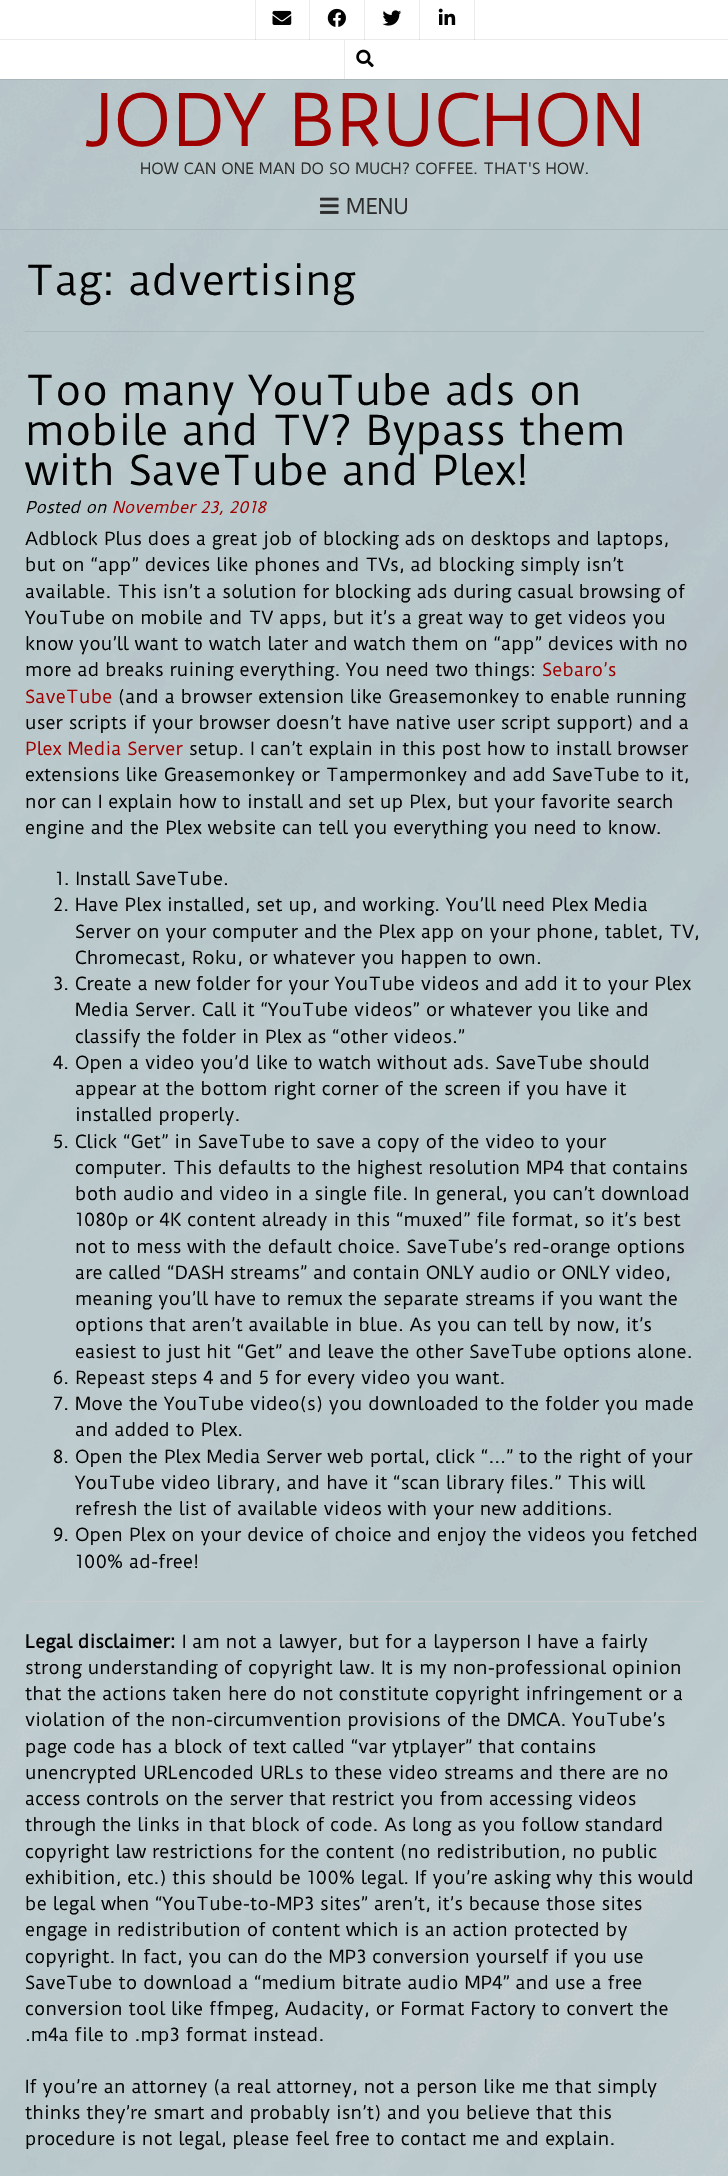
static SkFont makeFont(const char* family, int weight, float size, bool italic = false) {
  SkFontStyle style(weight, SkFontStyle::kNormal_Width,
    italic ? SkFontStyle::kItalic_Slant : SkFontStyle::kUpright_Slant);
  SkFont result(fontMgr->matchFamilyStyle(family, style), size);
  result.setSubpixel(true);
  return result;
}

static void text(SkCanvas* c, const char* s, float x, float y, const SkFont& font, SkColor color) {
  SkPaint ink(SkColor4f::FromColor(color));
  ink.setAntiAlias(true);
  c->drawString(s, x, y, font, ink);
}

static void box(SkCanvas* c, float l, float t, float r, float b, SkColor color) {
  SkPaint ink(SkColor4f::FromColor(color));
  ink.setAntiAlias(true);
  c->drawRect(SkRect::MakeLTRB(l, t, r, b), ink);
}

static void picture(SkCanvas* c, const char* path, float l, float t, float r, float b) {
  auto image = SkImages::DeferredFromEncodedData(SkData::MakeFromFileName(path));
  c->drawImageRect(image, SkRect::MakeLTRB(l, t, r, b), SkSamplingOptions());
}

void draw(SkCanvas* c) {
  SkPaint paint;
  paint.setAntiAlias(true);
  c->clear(0xffffffff);
  picture(c, "img_01.png", 0, 79, 728, 2176);
  box(c, 0, 79, 728, 80, 0x14000000);
  box(c, 0, 39, 728, 40, 0xffebebeb);
  box(c, 255, 0, 256, 40, 0x14000000);
  box(c, 309, 0, 310, 40, 0x14000000);
  picture(c, "img_02.png", 272, 10, 292, 25);
  box(c, 364, 0, 365, 40, 0x14000000);
  picture(c, "img_03.png", 327, 8, 346, 27);
  box(c, 419, 0, 420, 40, 0x14000000);
  picture(c, "img_04.png", 382, 10, 402, 26);
  box(c, 474, 0, 475, 40, 0x14000000);
  picture(c, "img_05.png", 438, 8, 456, 25);
  box(c, 344, 40, 345, 79, 0xffebebeb);
  picture(c, "img_06.png", 356, 49, 374, 68);
  paint.setColor(0x14000000);
  c->drawPath(SkPathBuilder().moveTo(0, 229).lineTo(0, 230).lineTo(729, 230).lineTo(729, 81).lineTo(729, 229).close().detach(), paint);
  SkFont face1 = makeFont("Duru Sans", 400, 70);
  text(c, "JODY BRUCHON", 84, 146, face1, 0xff9e0000);
  SkFont face2 = makeFont("Duru Sans", 400, 15);
  text(c, "HOW CAN ONE MAN DO SO MUCH? COFFEE. THAT'S HOW.", 140, 174, face2, 0xff2d2d2d);
  picture(c, "img_07.png", 320, 197, 339, 214);
  SkFont face3 = makeFont("Duru Sans", 400, 21);
  text(c, "MENU", 346, 214, face3, 0xff2d2d2d);
  box(c, 25, 331, 704, 332, 0x14000000);
  SkFont face4 = makeFont("Duru Sans", 400, 40);
  text(c, "Tag: advertising", 25, 295, face4, 0xff020202);
  text(c, "Too many YouTube ads on", 25, 405, face4, 0xff020202);
  text(c, "mobile and TV? Bypass them", 25, 445, face4, 0xff020202);
  text(c, "with SaveTube and Plex!", 25, 485, face4, 0xff020202);
  SkFont face5 = makeFont("Duru Sans", 400, 15.75f, true);
  text(c, "Posted on", 25, 513, face5, 0xff020202);
  text(c, "November 23, 2018", 112, 513, face5, 0xff9e0000);
  SkFont face6 = makeFont("Duru Sans", 400, 17.5f);
  text(c, "Adblock Plus does a great job of blocking ads on desktops and laptops,", 25, 545, face6, 0xff020202);
  text(c, "but on “app” devices like phones and TVs, ad blocking simply isn’t", 25, 571, face6, 0xff020202);
  text(c, "available. This isn’t a solution for blocking ads during casual browsing of", 25, 598, face6, 0xff020202);
  text(c, "YouTube on mobile and TV apps, but it’s a great way to get videos you", 25, 624, face6, 0xff020202);
  text(c, "know you’ll want to watch later and watch them on “app” devices with no", 25, 650, face6, 0xff020202);
  text(c, "more ad breaks ruining everything. You need two things:", 25, 676, face6, 0xff020202);
  text(c, "Sebaro’s", 542, 676, face6, 0xff9e0000);
  text(c, "SaveTube", 25, 703, face6, 0xff9e0000);
  text(c, "(and a browser extension like Greasemonkey to enable running", 118, 703, face6, 0xff020202);
  text(c, "user scripts if your browser doesn’t have native user script support) and a", 25, 729, face6, 0xff020202);
  text(c, "Plex Media Server", 25, 755, face6, 0xff9e0000);
  text(c, "setup. I can’t explain in this post how to install browser", 189, 755, face6, 0xff020202);
  text(c, "extensions like Greasemonkey or Tampermonkey and add SaveTube to it,", 25, 781, face6, 0xff020202);
  text(c, "nor can I explain how to install and set up Plex, but your favorite search", 25, 808, face6, 0xff020202);
  text(c, "engine and the Plex website can tell you everything you need to know.", 25, 834, face6, 0xff020202);
  text(c, "1. Install SaveTube.", 55, 885, face6, 0xff020202);
  text(c, "2. Have Plex installed, set up, and working. You’ll need Plex Media", 53, 911, face6, 0xff020202);
  text(c, "Server on your computer and the Plex app on your phone, tablet, TV,", 75, 938, face6, 0xff020202);
  text(c, "Chromecast, Roku, or whatever you happen to own.", 75, 964, face6, 0xff020202);
  text(c, "3. Create a new folder for your YouTube videos and add it to your Plex", 53, 990, face6, 0xff020202);
  text(c, "Media Server. Call it “YouTube videos” or whatever you like and", 75, 1016, face6, 0xff020202);
  text(c, "classify the folder in Plex as “other videos.”", 75, 1043, face6, 0xff020202);
  text(c, "4. Open a video you’d like to watch without ads. SaveTube should", 53, 1069, face6, 0xff020202);
  text(c, "appear at the bottom right corner of the screen if you have it", 75, 1095, face6, 0xff020202);
  text(c, "installed properly.", 75, 1121, face6, 0xff020202);
  text(c, "5. Click “Get” in SaveTube to save a copy of the video to your", 53, 1148, face6, 0xff020202);
  text(c, "computer. This defaults to the highest resolution MP4 that contains", 75, 1174, face6, 0xff020202);
  text(c, "both audio and video in a single file. In general, you can’t download", 75, 1200, face6, 0xff020202);
  text(c, "1080p or 4K content already in this “muxed” file format, so it’s best", 75, 1226, face6, 0xff020202);
  text(c, "not to mess with the default choice. SaveTube’s red-orange options", 75, 1253, face6, 0xff020202);
  text(c, "are called “DASH streams” and contain ONLY audio or ONLY video,", 75, 1279, face6, 0xff020202);
  text(c, "meaning you’ll have to remux the separate streams if you want the", 75, 1305, face6, 0xff020202);
  text(c, "options that aren’t available in blue. As you can tell by now, it’s", 75, 1331, face6, 0xff020202);
  text(c, "easiest to just hit “Get” and leave the other SaveTube options alone.", 75, 1358, face6, 0xff020202);
  text(c, "6. Repeast steps 4 and 5 for every video you want.", 53, 1384, face6, 0xff020202);
  text(c, "7. Move the YouTube video(s) you downloaded to the folder you made", 53, 1410, face6, 0xff020202);
  text(c, "and added to Plex.", 75, 1436, face6, 0xff020202);
  text(c, "8. Open the Plex Media Server web portal, click “…” to the right of your", 53, 1463, face6, 0xff020202);
  text(c, "YouTube video library, and have it “scan library files.” This will", 75, 1489, face6, 0xff020202);
  text(c, "refresh the list of available videos with your new additions.", 75, 1515, face6, 0xff020202);
  text(c, "9. Open Plex on your device of choice and enjoy the videos you fetched", 53, 1541, face6, 0xff020202);
  text(c, "100% ad-free!", 75, 1568, face6, 0xff020202);
  box(c, 25, 1601, 704, 1602, 0xffcccccc);
  SkFont face7 = makeFont("Duru Sans", 700, 17.5f);
  text(c, "Legal disclaimer:", 25, 1648, face7, 0xff020202);
  text(c, "I am not a lawyer, but for a layperson I have a fairly", 182, 1648, face6, 0xff020202);
  text(c, "strong understanding of copyright law. It is my non-professional opinion", 25, 1674, face6, 0xff020202);
  text(c, "that the actions taken here do not constitute copyright infringement or a", 25, 1700, face6, 0xff020202);
  text(c, "violation of the non-circumvention provisions of the DMCA. YouTube’s", 25, 1726, face6, 0xff020202);
  text(c, "page code has a block of text called “var ytplayer” that contains", 25, 1753, face6, 0xff020202);
  text(c, "unencrypted URLencoded URLs to these video streams and there are no", 25, 1779, face6, 0xff020202);
  text(c, "access controls on the server that restrict you from accessing videos", 25, 1805, face6, 0xff020202);
  text(c, "through the links in that block of code. As long as you follow standard", 25, 1831, face6, 0xff020202);
  text(c, "copyright law restrictions for the content (no redistribution, no public", 25, 1858, face6, 0xff020202);
  text(c, "exhibition, etc.) this should be 100% legal. If you’re asking why this would", 25, 1884, face6, 0xff020202);
  text(c, "be legal when “YouTube-to-MP3 sites” aren’t, it’s because those sites", 25, 1910, face6, 0xff020202);
  text(c, "engage in redistribution of content which is an action protected by", 25, 1936, face6, 0xff020202);
  text(c, "copyright. In fact, you can do the MP3 conversion yourself if you use", 25, 1963, face6, 0xff020202);
  text(c, "SaveTube to download a “medium bitrate audio MP4” and use a free", 25, 1989, face6, 0xff020202);
  text(c, "conversion tool like ffmpeg, Audacity, or Format Factory to convert the", 25, 2015, face6, 0xff020202);
  text(c, ".m4a file to .mp3 format instead.", 25, 2041, face6, 0xff020202);
  text(c, "If you’re an attorney (a real attorney, not a person like me that simply", 25, 2093, face6, 0xff020202);
  text(c, "thinks they’re smart and probably isn’t) and you believe that this", 25, 2119, face6, 0xff020202);
  text(c, "procedure is not legal, please feel free to contact me and explain.", 25, 2145, face6, 0xff020202);
}
